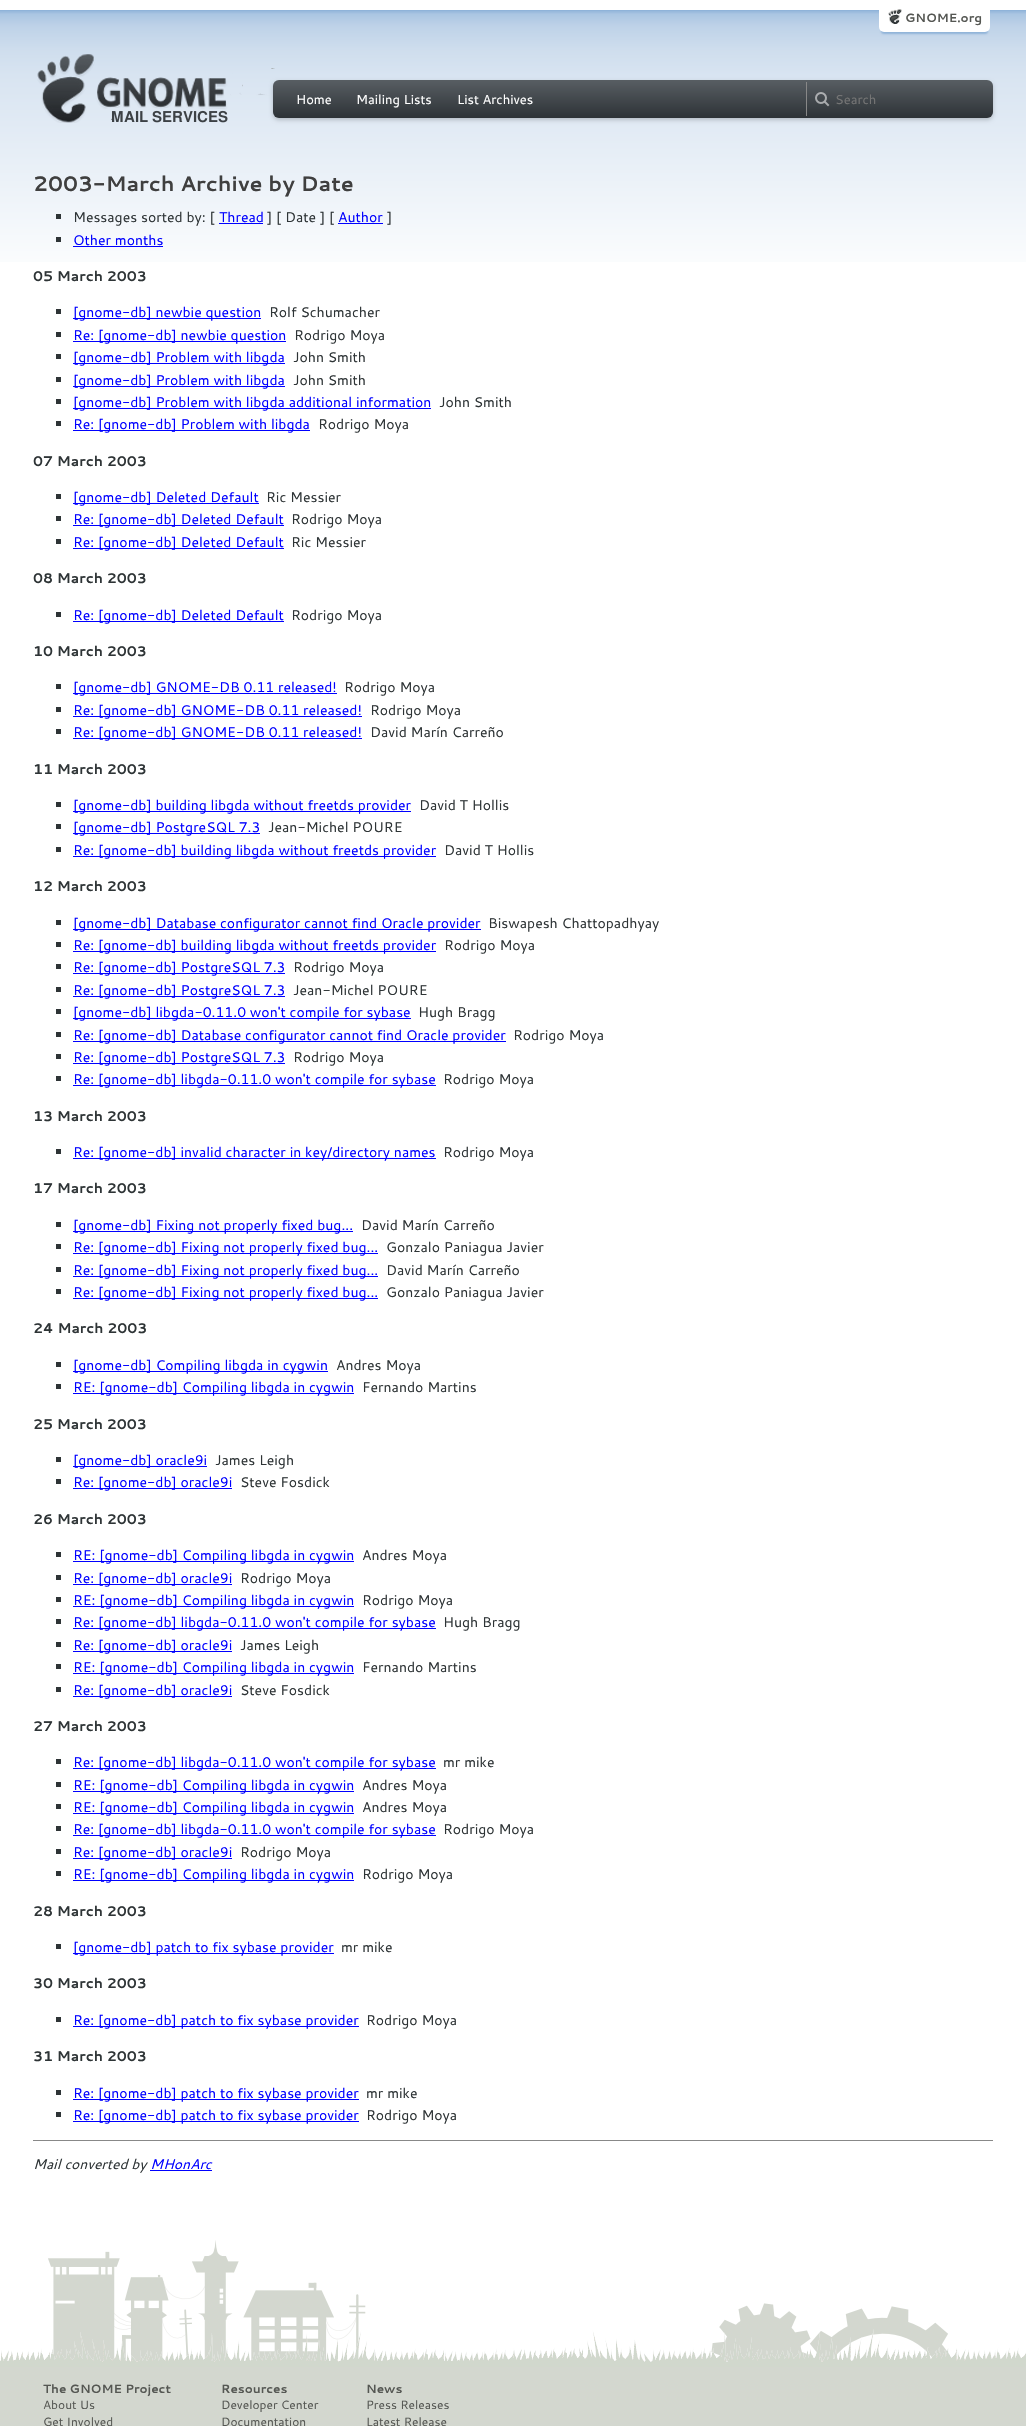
static SkFont makeFont(const char* family, int weight, float size, bool italic = false) {
  SkFontStyle style(weight, SkFontStyle::kNormal_Width,
    italic ? SkFontStyle::kItalic_Slant : SkFontStyle::kUpright_Slant);
  SkFont result(fontMgr->matchFamilyStyle(family, style), size);
  result.setSubpixel(true);
  return result;
}

static void text(SkCanvas* c, const char* s, float x, float y, const SkFont& font, SkColor color) {
  SkPaint ink(SkColor4f::FromColor(color));
  ink.setAntiAlias(true);
  c->drawString(s, x, y, font, ink);
}

static void box(SkCanvas* c, float l, float t, float r, float b, SkColor color) {
  SkPaint ink(SkColor4f::FromColor(color));
  ink.setAntiAlias(true);
  c->drawRect(SkRect::MakeLTRB(l, t, r, b), ink);
}

static void roundBox(SkCanvas* c, float l, float t, float r, float b, float radius, SkColor color) {
  SkPaint ink(SkColor4f::FromColor(color));
  ink.setAntiAlias(true);
  c->drawRoundRect(SkRect::MakeLTRB(l, t, r, b), radius, radius, ink);
}

static void picture(SkCanvas* c, const char* path, float l, float t, float r, float b) {
  auto image = SkImages::DeferredFromEncodedData(SkData::MakeFromFileName(path));
  c->drawImageRect(image, SkRect::MakeLTRB(l, t, r, b), SkSamplingOptions());
}

void draw(SkCanvas* c) {
  SkPaint paint;
  paint.setAntiAlias(true);
  c->clear(0xffffffff);
  picture(c, "img_01.png", 0, 10, 1026, 262);
  paint.setColor(0xff8fb3d9);
  paint.setMaskFilter(SkMaskFilter::MakeBlur(kNormal_SkBlurStyle, 1));
  c->drawRoundRect(SkRect::MakeLTRB(881, 10, 988, 34), 3, 3, paint);
  paint.setMaskFilter(nullptr);
  roundBox(c, 879, 4, 990, 32, 5, 0xffffffff);
  picture(c, "img_02.png", 888, 9, 902, 24);
  SkFont face1 = makeFont("Cantarell", 700, 12);
  text(c, "GNOME.org", 905, 22, face1, 0xff555753);
  picture(c, "img_03.png", 37, 54, 275, 123);
  paint.setColor(0x33000000);
  paint.setMaskFilter(SkMaskFilter::MakeBlur(kNormal_SkBlurStyle, 2));
  c->drawRoundRect(SkRect::MakeLTRB(273, 82, 993, 120), 6, 6, paint);
  paint.setMaskFilter(nullptr);
  picture(c, "img_04.png", 273, 80, 993, 118);
  SkFont face2 = makeFont("Cantarell", 400, 13);
  text(c, "Home", 296, 104, face2, 0xffffffff);
  text(c, "Mailing Lists", 356, 104, face2, 0xffffffff);
  text(c, "List Archives", 457, 104, face2, 0xffffffff);
  picture(c, "img_05.png", 815, 92, 830, 107);
  box(c, 806, 82, 807, 116, 0xff888888);
  text(c, "Search", 835, 104, face2, 0xff757575);
  SkFont face3 = makeFont("Cantarell", 700, 21);
  text(c, "2003-March Archive by Date", 33, 191, face3, 0xff3f3f3f);
  box(c, 56, 214, 61, 219, 0xff2e3436);
  SkFont face4 = makeFont("Cantarell", 400, 14);
  text(c, "Messages sorted by: [", 73, 222, face4, 0xff2e3436);
  text(c, "Thread", 219, 222, face4, 0xff0000ff);
  box(c, 219, 223, 263, 224, 0xff0000ff);
  text(c, "] [ Date ] [", 267, 222, face4, 0xff2e3436);
  text(c, "Author", 338, 222, face4, 0xff0000ff);
  box(c, 338, 223, 383, 224, 0xff0000ff);
  text(c, "]", 387, 222, face4, 0xff2e3436);
  box(c, 56, 237, 61, 242, 0xff2e3436);
  text(c, "Other months", 73, 245, face4, 0xff0000ff);
  box(c, 73, 246, 163, 247, 0xff0000ff);
  SkFont face5 = makeFont("Cantarell", 700, 14);
  text(c, "05 March 2003", 33, 281, face5, 0xff2e3436);
  box(c, 56, 309, 61, 314, 0xff2e3436);
  box(c, 73, 318, 261, 319, 0xff0000ff);
  text(c, "[gnome-db] newbie question", 73, 317, face4, 0xff0000ff);
  text(c, "Rolf Schumacher", 269, 317, face4, 0xff2e3436);
  box(c, 56, 332, 61, 337, 0xff2e3436);
  box(c, 73, 341, 286, 342, 0xff0000ff);
  text(c, "Re: [gnome-db] newbie question", 73, 340, face4, 0xff0000ff);
  text(c, "Rodrigo Moya", 294, 340, face4, 0xff2e3436);
  box(c, 56, 354, 61, 359, 0xff2e3436);
  box(c, 73, 363, 285, 364, 0xff0000ff);
  text(c, "[gnome-db] Problem with libgda", 73, 362, face4, 0xff0000ff);
  text(c, "John Smith", 293, 362, face4, 0xff2e3436);
  box(c, 56, 377, 61, 382, 0xff2e3436);
  box(c, 73, 386, 285, 387, 0xff0000ff);
  text(c, "[gnome-db] Problem with libgda", 73, 385, face4, 0xff0000ff);
  text(c, "John Smith", 293, 385, face4, 0xff2e3436);
  box(c, 56, 399, 61, 404, 0xff2e3436);
  box(c, 73, 408, 431, 409, 0xff0000ff);
  text(c, "[gnome-db] Problem with libgda additional information", 73, 407, face4, 0xff0000ff);
  text(c, "John Smith", 439, 407, face4, 0xff2e3436);
  box(c, 56, 421, 61, 426, 0xff2e3436);
  box(c, 73, 430, 310, 431, 0xff0000ff);
  text(c, "Re: [gnome-db] Problem with libgda", 73, 429, face4, 0xff0000ff);
  text(c, "Rodrigo Moya", 318, 429, face4, 0xff2e3436);
  text(c, "07 March 2003", 33, 466, face5, 0xff2e3436);
  box(c, 56, 494, 61, 499, 0xff2e3436);
  box(c, 73, 503, 259, 504, 0xff0000ff);
  text(c, "[gnome-db] Deleted Default", 73, 502, face4, 0xff0000ff);
  text(c, "Ric Messier", 266, 502, face4, 0xff2e3436);
  box(c, 56, 516, 61, 521, 0xff2e3436);
  box(c, 73, 525, 284, 526, 0xff0000ff);
  text(c, "Re: [gnome-db] Deleted Default", 73, 524, face4, 0xff0000ff);
  text(c, "Rodrigo Moya", 291, 524, face4, 0xff2e3436);
  box(c, 56, 539, 61, 544, 0xff2e3436);
  box(c, 73, 548, 284, 549, 0xff0000ff);
  text(c, "Re: [gnome-db] Deleted Default", 73, 547, face4, 0xff0000ff);
  text(c, "Ric Messier", 291, 547, face4, 0xff2e3436);
  text(c, "08 March 2003", 33, 583, face5, 0xff2e3436);
  box(c, 56, 612, 61, 617, 0xff2e3436);
  box(c, 73, 621, 284, 622, 0xff0000ff);
  text(c, "Re: [gnome-db] Deleted Default", 73, 620, face4, 0xff0000ff);
  text(c, "Rodrigo Moya", 291, 620, face4, 0xff2e3436);
  text(c, "10 March 2003", 33, 656, face5, 0xff2e3436);
  box(c, 56, 684, 61, 689, 0xff2e3436);
  box(c, 73, 693, 337, 694, 0xff0000ff);
  text(c, "[gnome-db] GNOME-DB 0.11 released!", 73, 692, face4, 0xff0000ff);
  text(c, "Rodrigo Moya", 344, 692, face4, 0xff2e3436);
  box(c, 56, 707, 61, 712, 0xff2e3436);
  box(c, 73, 716, 362, 717, 0xff0000ff);
  text(c, "Re: [gnome-db] GNOME-DB 0.11 released!", 73, 715, face4, 0xff0000ff);
  text(c, "Rodrigo Moya", 370, 715, face4, 0xff2e3436);
  box(c, 56, 729, 61, 734, 0xff2e3436);
  box(c, 73, 738, 362, 739, 0xff0000ff);
  text(c, "Re: [gnome-db] GNOME-DB 0.11 released!", 73, 737, face4, 0xff0000ff);
  text(c, "David Marín Carreño", 370, 737, face4, 0xff2e3436);
  text(c, "11 March 2003", 33, 774, face5, 0xff2e3436);
  box(c, 56, 802, 61, 807, 0xff2e3436);
  box(c, 73, 811, 411, 812, 0xff0000ff);
  text(c, "[gnome-db] building libgda without freetds provider", 73, 810, face4, 0xff0000ff);
  text(c, "David T Hollis", 419, 810, face4, 0xff2e3436);
  box(c, 56, 824, 61, 829, 0xff2e3436);
  box(c, 73, 833, 260, 834, 0xff0000ff);
  text(c, "[gnome-db] PostgreSQL 7.3", 73, 832, face4, 0xff0000ff);
  text(c, "Jean-Michel POURE", 268, 832, face4, 0xff2e3436);
  box(c, 56, 847, 61, 852, 0xff2e3436);
  box(c, 73, 856, 436, 857, 0xff0000ff);
  text(c, "Re: [gnome-db] building libgda without freetds provider", 73, 855, face4, 0xff0000ff);
  text(c, "David T Hollis", 444, 855, face4, 0xff2e3436);
  text(c, "12 March 2003", 33, 891, face5, 0xff2e3436);
  box(c, 56, 920, 61, 925, 0xff2e3436);
  box(c, 73, 929, 481, 930, 0xff0000ff);
  text(c, "[gnome-db] Database configurator cannot find Oracle provider", 73, 928, face4, 0xff0000ff);
  text(c, "Biswapesh Chattopadhyay", 488, 928, face4, 0xff2e3436);
  box(c, 56, 942, 61, 947, 0xff2e3436);
  box(c, 73, 951, 436, 952, 0xff0000ff);
  text(c, "Re: [gnome-db] building libgda without freetds provider", 73, 950, face4, 0xff0000ff);
  text(c, "Rodrigo Moya", 444, 950, face4, 0xff2e3436);
  box(c, 56, 964, 61, 969, 0xff2e3436);
  box(c, 73, 973, 285, 974, 0xff0000ff);
  text(c, "Re: [gnome-db] PostgreSQL 7.3", 73, 972, face4, 0xff0000ff);
  text(c, "Rodrigo Moya", 293, 972, face4, 0xff2e3436);
  box(c, 56, 987, 61, 992, 0xff2e3436);
  box(c, 73, 996, 285, 997, 0xff0000ff);
  text(c, "Re: [gnome-db] PostgreSQL 7.3", 73, 995, face4, 0xff0000ff);
  text(c, "Jean-Michel POURE", 293, 995, face4, 0xff2e3436);
  box(c, 56, 1009, 61, 1014, 0xff2e3436);
  box(c, 73, 1018, 411, 1019, 0xff0000ff);
  text(c, "[gnome-db] libgda-0.11.0 won't compile for sybase", 73, 1017, face4, 0xff0000ff);
  text(c, "Hugh Bragg", 418, 1017, face4, 0xff2e3436);
  box(c, 56, 1032, 61, 1037, 0xff2e3436);
  box(c, 73, 1041, 506, 1042, 0xff0000ff);
  text(c, "Re: [gnome-db] Database configurator cannot find Oracle provider", 73, 1040, face4, 0xff0000ff);
  text(c, "Rodrigo Moya", 513, 1040, face4, 0xff2e3436);
  box(c, 56, 1054, 61, 1059, 0xff2e3436);
  box(c, 73, 1063, 285, 1064, 0xff0000ff);
  text(c, "Re: [gnome-db] PostgreSQL 7.3", 73, 1062, face4, 0xff0000ff);
  text(c, "Rodrigo Moya", 293, 1062, face4, 0xff2e3436);
  box(c, 56, 1076, 61, 1081, 0xff2e3436);
  box(c, 73, 1085, 436, 1086, 0xff0000ff);
  text(c, "Re: [gnome-db] libgda-0.11.0 won't compile for sybase", 73, 1084, face4, 0xff0000ff);
  text(c, "Rodrigo Moya", 443, 1084, face4, 0xff2e3436);
  text(c, "13 March 2003", 33, 1121, face5, 0xff2e3436);
  box(c, 56, 1149, 61, 1154, 0xff2e3436);
  box(c, 73, 1158, 436, 1159, 0xff0000ff);
  text(c, "Re: [gnome-db] invalid character in key/directory names", 73, 1157, face4, 0xff0000ff);
  text(c, "Rodrigo Moya", 443, 1157, face4, 0xff2e3436);
  text(c, "17 March 2003", 33, 1193, face5, 0xff2e3436);
  box(c, 56, 1222, 61, 1227, 0xff2e3436);
  box(c, 73, 1231, 353, 1232, 0xff0000ff);
  text(c, "[gnome-db] Fixing not properly fixed bug...", 73, 1230, face4, 0xff0000ff);
  text(c, "David Marín Carreño", 361, 1230, face4, 0xff2e3436);
  box(c, 56, 1244, 61, 1249, 0xff2e3436);
  box(c, 73, 1253, 378, 1254, 0xff0000ff);
  text(c, "Re: [gnome-db] Fixing not properly fixed bug...", 73, 1252, face4, 0xff0000ff);
  text(c, "Gonzalo Paniagua Javier", 386, 1252, face4, 0xff2e3436);
  box(c, 56, 1267, 61, 1272, 0xff2e3436);
  box(c, 73, 1276, 378, 1277, 0xff0000ff);
  text(c, "Re: [gnome-db] Fixing not properly fixed bug...", 73, 1275, face4, 0xff0000ff);
  text(c, "David Marín Carreño", 386, 1275, face4, 0xff2e3436);
  box(c, 56, 1289, 61, 1294, 0xff2e3436);
  box(c, 73, 1298, 378, 1299, 0xff0000ff);
  text(c, "Re: [gnome-db] Fixing not properly fixed bug...", 73, 1297, face4, 0xff0000ff);
  text(c, "Gonzalo Paniagua Javier", 386, 1297, face4, 0xff2e3436);
  text(c, "24 March 2003", 33, 1333, face5, 0xff2e3436);
  box(c, 56, 1362, 61, 1367, 0xff2e3436);
  box(c, 73, 1371, 328, 1372, 0xff0000ff);
  text(c, "[gnome-db] Compiling libgda in cygwin", 73, 1370, face4, 0xff0000ff);
  text(c, "Andres Moya", 336, 1370, face4, 0xff2e3436);
  box(c, 56, 1384, 61, 1389, 0xff2e3436);
  box(c, 73, 1393, 354, 1394, 0xff0000ff);
  text(c, "RE: [gnome-db] Compiling libgda in cygwin", 73, 1392, face4, 0xff0000ff);
  text(c, "Fernando Martins", 362, 1392, face4, 0xff2e3436);
  text(c, "25 March 2003", 33, 1429, face5, 0xff2e3436);
  box(c, 56, 1457, 61, 1462, 0xff2e3436);
  box(c, 73, 1466, 207, 1467, 0xff0000ff);
  text(c, "[gnome-db] oracle9i", 73, 1465, face4, 0xff0000ff);
  text(c, "James Leigh", 215, 1465, face4, 0xff2e3436);
  box(c, 56, 1479, 61, 1484, 0xff2e3436);
  box(c, 73, 1488, 232, 1489, 0xff0000ff);
  text(c, "Re: [gnome-db] oracle9i", 73, 1487, face4, 0xff0000ff);
  text(c, "Steve Fosdick", 240, 1487, face4, 0xff2e3436);
  text(c, "26 March 2003", 33, 1524, face5, 0xff2e3436);
  box(c, 56, 1552, 61, 1557, 0xff2e3436);
  box(c, 73, 1561, 354, 1562, 0xff0000ff);
  text(c, "RE: [gnome-db] Compiling libgda in cygwin", 73, 1560, face4, 0xff0000ff);
  text(c, "Andres Moya", 362, 1560, face4, 0xff2e3436);
  box(c, 56, 1575, 61, 1580, 0xff2e3436);
  box(c, 73, 1584, 232, 1585, 0xff0000ff);
  text(c, "Re: [gnome-db] oracle9i", 73, 1583, face4, 0xff0000ff);
  text(c, "Rodrigo Moya", 240, 1583, face4, 0xff2e3436);
  box(c, 56, 1597, 61, 1602, 0xff2e3436);
  box(c, 73, 1606, 354, 1607, 0xff0000ff);
  text(c, "RE: [gnome-db] Compiling libgda in cygwin", 73, 1605, face4, 0xff0000ff);
  text(c, "Rodrigo Moya", 362, 1605, face4, 0xff2e3436);
  box(c, 56, 1619, 61, 1624, 0xff2e3436);
  box(c, 73, 1628, 436, 1629, 0xff0000ff);
  text(c, "Re: [gnome-db] libgda-0.11.0 won't compile for sybase", 73, 1627, face4, 0xff0000ff);
  text(c, "Hugh Bragg", 443, 1627, face4, 0xff2e3436);
  box(c, 56, 1642, 61, 1647, 0xff2e3436);
  box(c, 73, 1651, 232, 1652, 0xff0000ff);
  text(c, "Re: [gnome-db] oracle9i", 73, 1650, face4, 0xff0000ff);
  text(c, "James Leigh", 240, 1650, face4, 0xff2e3436);
  box(c, 56, 1664, 61, 1669, 0xff2e3436);
  box(c, 73, 1673, 354, 1674, 0xff0000ff);
  text(c, "RE: [gnome-db] Compiling libgda in cygwin", 73, 1672, face4, 0xff0000ff);
  text(c, "Fernando Martins", 362, 1672, face4, 0xff2e3436);
  box(c, 56, 1687, 61, 1692, 0xff2e3436);
  box(c, 73, 1696, 232, 1697, 0xff0000ff);
  text(c, "Re: [gnome-db] oracle9i", 73, 1695, face4, 0xff0000ff);
  text(c, "Steve Fosdick", 240, 1695, face4, 0xff2e3436);
  text(c, "27 March 2003", 33, 1731, face5, 0xff2e3436);
  box(c, 56, 1759, 61, 1764, 0xff2e3436);
  box(c, 73, 1768, 436, 1769, 0xff0000ff);
  text(c, "Re: [gnome-db] libgda-0.11.0 won't compile for sybase", 73, 1767, face4, 0xff0000ff);
  text(c, "mr mike", 443, 1767, face4, 0xff2e3436);
  box(c, 56, 1782, 61, 1787, 0xff2e3436);
  box(c, 73, 1791, 354, 1792, 0xff0000ff);
  text(c, "RE: [gnome-db] Compiling libgda in cygwin", 73, 1790, face4, 0xff0000ff);
  text(c, "Andres Moya", 362, 1790, face4, 0xff2e3436);
  box(c, 56, 1804, 61, 1809, 0xff2e3436);
  box(c, 73, 1813, 354, 1814, 0xff0000ff);
  text(c, "RE: [gnome-db] Compiling libgda in cygwin", 73, 1812, face4, 0xff0000ff);
  text(c, "Andres Moya", 362, 1812, face4, 0xff2e3436);
  box(c, 56, 1826, 61, 1831, 0xff2e3436);
  box(c, 73, 1835, 436, 1836, 0xff0000ff);
  text(c, "Re: [gnome-db] libgda-0.11.0 won't compile for sybase", 73, 1834, face4, 0xff0000ff);
  text(c, "Rodrigo Moya", 443, 1834, face4, 0xff2e3436);
  box(c, 56, 1849, 61, 1854, 0xff2e3436);
  box(c, 73, 1858, 232, 1859, 0xff0000ff);
  text(c, "Re: [gnome-db] oracle9i", 73, 1857, face4, 0xff0000ff);
  text(c, "Rodrigo Moya", 240, 1857, face4, 0xff2e3436);
  box(c, 56, 1871, 61, 1876, 0xff2e3436);
  box(c, 73, 1880, 354, 1881, 0xff0000ff);
  text(c, "RE: [gnome-db] Compiling libgda in cygwin", 73, 1879, face4, 0xff0000ff);
  text(c, "Rodrigo Moya", 362, 1879, face4, 0xff2e3436);
  text(c, "28 March 2003", 33, 1916, face5, 0xff2e3436);
  box(c, 56, 1944, 61, 1949, 0xff2e3436);
  box(c, 73, 1953, 334, 1954, 0xff0000ff);
  text(c, "[gnome-db] patch to fix sybase provider", 73, 1952, face4, 0xff0000ff);
  text(c, "mr mike", 341, 1952, face4, 0xff2e3436);
  text(c, "30 March 2003", 33, 1988, face5, 0xff2e3436);
  box(c, 56, 2017, 61, 2022, 0xff2e3436);
  box(c, 73, 2026, 359, 2027, 0xff0000ff);
  text(c, "Re: [gnome-db] patch to fix sybase provider", 73, 2025, face4, 0xff0000ff);
  text(c, "Rodrigo Moya", 366, 2025, face4, 0xff2e3436);
  text(c, "31 March 2003", 33, 2061, face5, 0xff2e3436);
  box(c, 56, 2090, 61, 2095, 0xff2e3436);
  box(c, 73, 2099, 359, 2100, 0xff0000ff);
  text(c, "Re: [gnome-db] patch to fix sybase provider", 73, 2098, face4, 0xff0000ff);
  text(c, "mr mike", 366, 2098, face4, 0xff2e3436);
  box(c, 56, 2112, 61, 2117, 0xff2e3436);
  box(c, 73, 2121, 359, 2122, 0xff0000ff);
  text(c, "Re: [gnome-db] patch to fix sybase provider", 73, 2120, face4, 0xff0000ff);
  text(c, "Rodrigo Moya", 366, 2120, face4, 0xff2e3436);
  box(c, 33, 2140, 993, 2141, 0xff888888);
  SkFont face6 = makeFont("Cantarell", 400, 14, true);
  text(c, "Mail converted by", 33, 2169, face6, 0xff2e3436);
  text(c, "MHonArc", 150, 2169, face6, 0xff0000ff);
  box(c, 150, 2170, 212, 2171, 0xff0000ff);
  picture(c, "img_06.png", 48, 2240, 966, 2361);
  picture(c, "img_07.png", 0, 2329, 1026, 2367);
  box(c, 0, 2367, 1026, 2426, 0xffd3d7cf);
  text(c, "The GNOME Project", 43, 2393, face1, 0xff555753);
  SkFont face7 = makeFont("Cantarell", 400, 12);
  text(c, "About Us", 43, 2409, face7, 0xff555753);
  text(c, "Get Involved", 43, 2426, face7, 0xff555753);
  text(c, "Resources", 221, 2393, face1, 0xff555753);
  text(c, "Developer Center", 221, 2409, face7, 0xff555753);
  text(c, "Documentation", 221, 2426, face7, 0xff555753);
  text(c, "News", 366, 2393, face1, 0xff555753);
  text(c, "Press Releases", 366, 2409, face7, 0xff555753);
  text(c, "Latest Release", 366, 2426, face7, 0xff555753);
}
